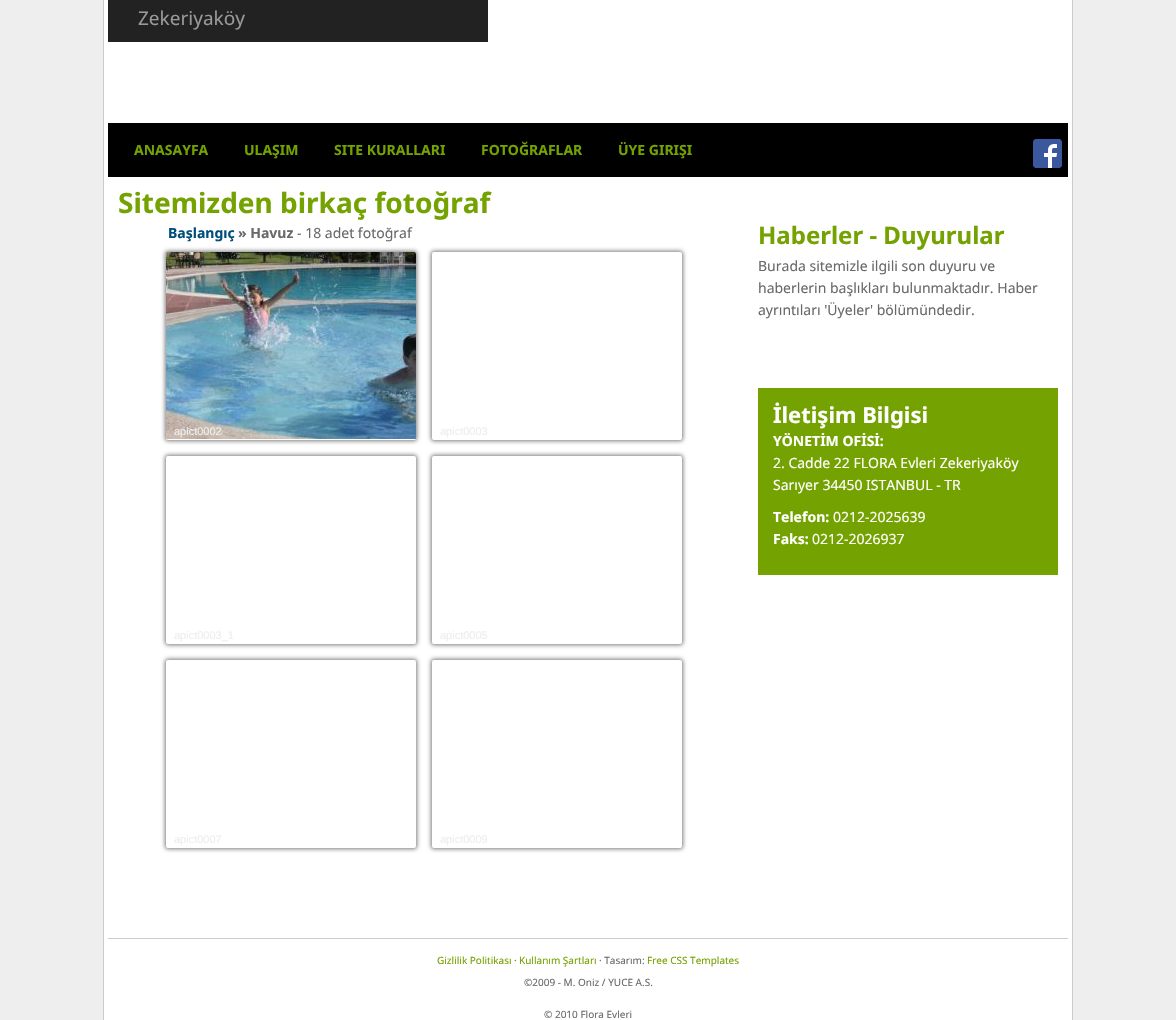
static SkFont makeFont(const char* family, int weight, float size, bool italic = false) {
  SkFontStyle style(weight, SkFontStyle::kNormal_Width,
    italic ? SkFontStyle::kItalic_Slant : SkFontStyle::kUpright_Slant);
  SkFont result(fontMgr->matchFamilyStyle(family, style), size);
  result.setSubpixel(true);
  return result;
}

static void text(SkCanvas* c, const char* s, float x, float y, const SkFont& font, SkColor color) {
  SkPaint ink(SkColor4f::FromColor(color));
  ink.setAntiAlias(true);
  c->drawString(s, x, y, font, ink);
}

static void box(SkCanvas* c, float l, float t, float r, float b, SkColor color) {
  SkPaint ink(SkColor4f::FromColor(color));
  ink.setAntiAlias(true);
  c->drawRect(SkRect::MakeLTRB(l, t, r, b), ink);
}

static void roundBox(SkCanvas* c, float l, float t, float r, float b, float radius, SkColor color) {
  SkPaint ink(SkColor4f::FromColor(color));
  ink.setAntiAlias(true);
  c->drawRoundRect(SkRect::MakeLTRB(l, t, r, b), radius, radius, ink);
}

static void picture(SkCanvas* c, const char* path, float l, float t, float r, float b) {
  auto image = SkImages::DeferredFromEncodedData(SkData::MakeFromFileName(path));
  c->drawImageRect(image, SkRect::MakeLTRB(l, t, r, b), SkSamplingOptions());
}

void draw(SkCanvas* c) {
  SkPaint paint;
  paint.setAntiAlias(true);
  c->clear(0xffeeeeee);
  box(c, 104, 0, 1072, 1020, 0xffffffff);
  box(c, 1072, 0, 1073, 1020, 0xffcccccc);
  box(c, 103, 0, 104, 1020, 0xffcccccc);
  box(c, 108, 0, 488, 42, 0xff222222);
  SkFont face1 = makeFont("Noto Sans", 400, 19);
  text(c, "Zekeriyaköy", 138, 25, face1, 0xff999999);
  box(c, 108, 123, 1068, 177, 0xff000000);
  SkFont face2 = makeFont("Noto Sans", 700, 14);
  text(c, "ANASAYFA", 134, 155, face2, 0xff74a200);
  text(c, "ULAŞIM", 244, 155, face2, 0xff74a200);
  text(c, "SITE KURALLARI", 334, 155, face2, 0xff74a200);
  text(c, "FOTOĞRAFLAR", 481, 155, face2, 0xff74a200);
  text(c, "ÜYE GIRIŞI", 618, 155, face2, 0xff74a200);
  picture(c, "img_01.png", 1033, 139, 1062, 168);
  SkFont face3 = makeFont("Noto Sans", 700, 28);
  text(c, "Sitemizden birkaç fotoğraf", 118, 213, face3, 0xff74a200);
  text(c, "Başlangıç", 168, 238, face2, 0xff004e7b);
  text(c, "» Havuz", 238, 238, face2, 0xff696969);
  SkFont face4 = makeFont("Noto Sans", 400, 14);
  text(c, "- 18 adet fotoğraf", 297, 238, face4, 0xff696969);
  paint.setColor(0xff7a7a7a);
  paint.setMaskFilter(SkMaskFilter::MakeBlur(kNormal_SkBlurStyle, 2));
  c->drawRoundRect(SkRect::MakeLTRB(165, 251, 417, 441), 3, 3, paint);
  paint.setMaskFilter(nullptr);
  roundBox(c, 166, 252, 416, 440, 2, 0xffffffff);
  picture(c, "img_02.png", 166, 252, 416, 439);
  SkFont face5 = makeFont("Liberation Sans", 400, 11);
  text(c, "apict0002", 174, 435, face5, 0xffeeeeee);
  paint.setMaskFilter(SkMaskFilter::MakeBlur(kNormal_SkBlurStyle, 2));
  c->drawRoundRect(SkRect::MakeLTRB(431, 251, 683, 441), 3, 3, paint);
  paint.setMaskFilter(nullptr);
  roundBox(c, 432, 252, 682, 440, 2, 0xffffffff);
  text(c, "apict0003", 440, 435, face5, 0xffeeeeee);
  paint.setMaskFilter(SkMaskFilter::MakeBlur(kNormal_SkBlurStyle, 2));
  c->drawRoundRect(SkRect::MakeLTRB(165, 455, 417, 645), 3, 3, paint);
  paint.setMaskFilter(nullptr);
  roundBox(c, 166, 456, 416, 644, 2, 0xffffffff);
  text(c, "apict0003_1", 174, 639, face5, 0xffeeeeee);
  paint.setMaskFilter(SkMaskFilter::MakeBlur(kNormal_SkBlurStyle, 2));
  c->drawRoundRect(SkRect::MakeLTRB(431, 455, 683, 645), 3, 3, paint);
  paint.setMaskFilter(nullptr);
  roundBox(c, 432, 456, 682, 644, 2, 0xffffffff);
  text(c, "apict0005", 440, 639, face5, 0xffeeeeee);
  paint.setMaskFilter(SkMaskFilter::MakeBlur(kNormal_SkBlurStyle, 2));
  c->drawRoundRect(SkRect::MakeLTRB(165, 659, 417, 849), 3, 3, paint);
  paint.setMaskFilter(nullptr);
  roundBox(c, 166, 660, 416, 848, 2, 0xffffffff);
  text(c, "apict0007", 174, 843, face5, 0xffeeeeee);
  paint.setMaskFilter(SkMaskFilter::MakeBlur(kNormal_SkBlurStyle, 2));
  c->drawRoundRect(SkRect::MakeLTRB(431, 659, 683, 849), 3, 3, paint);
  paint.setMaskFilter(nullptr);
  roundBox(c, 432, 660, 682, 848, 2, 0xffffffff);
  text(c, "apict0009", 440, 843, face5, 0xffeeeeee);
  SkFont face6 = makeFont("Noto Sans", 700, 24);
  text(c, "Haberler - Duyurular", 758, 244, face6, 0xff74a200);
  text(c, "Burada sitemizle ilgili son duyuru ve", 758, 271, face4, 0xff696969);
  text(c, "haberlerin başlıkları bulunmaktadır. Haber", 758, 293, face4, 0xff696969);
  text(c, "ayrıntıları 'Üyeler' bölümündedir.", 758, 315, face4, 0xff696969);
  box(c, 758, 388, 1058, 575, 0xff74a200);
  SkFont face7 = makeFont("Noto Sans", 700, 22);
  text(c, "İletişim Bilgisi", 773, 423, face7, 0xffffffff);
  text(c, "YÖNETİM OFİSİ:", 773, 446, face2, 0xffffffff);
  text(c, "2. Cadde 22 FLORA Evleri Zekeriyaköy", 773, 468, face4, 0xffffffff);
  text(c, "Sarıyer 34450 ISTANBUL - TR", 773, 490, face4, 0xffffffff);
  text(c, "Telefon:", 773, 522, face2, 0xffffffff);
  text(c, "0212-2025639", 833, 522, face4, 0xffffffff);
  text(c, "Faks:", 773, 544, face2, 0xffffffff);
  text(c, "0212-2026937", 812, 544, face4, 0xffffffff);
  box(c, 108, 938, 1068, 939, 0xffcccccc);
  SkFont face8 = makeFont("Noto Sans", 400, 10);
  text(c, "Gizlilik Politikası", 437, 964, face8, 0xff74a200);
  text(c, "·", 514, 964, face8, 0xff696969);
  text(c, "Kullanım Şartları", 519, 964, face8, 0xff74a200);
  text(c, "· Tasarım:", 599, 964, face8, 0xff696969);
  text(c, "Free CSS Templates", 647, 964, face8, 0xff74a200);
  text(c, "©2009 - M. Oniz / YUCE A.S.", 524, 986, face8, 0xff696969);
  text(c, "© 2010 Flora Evleri", 544, 1018, face8, 0xff696969);
}
